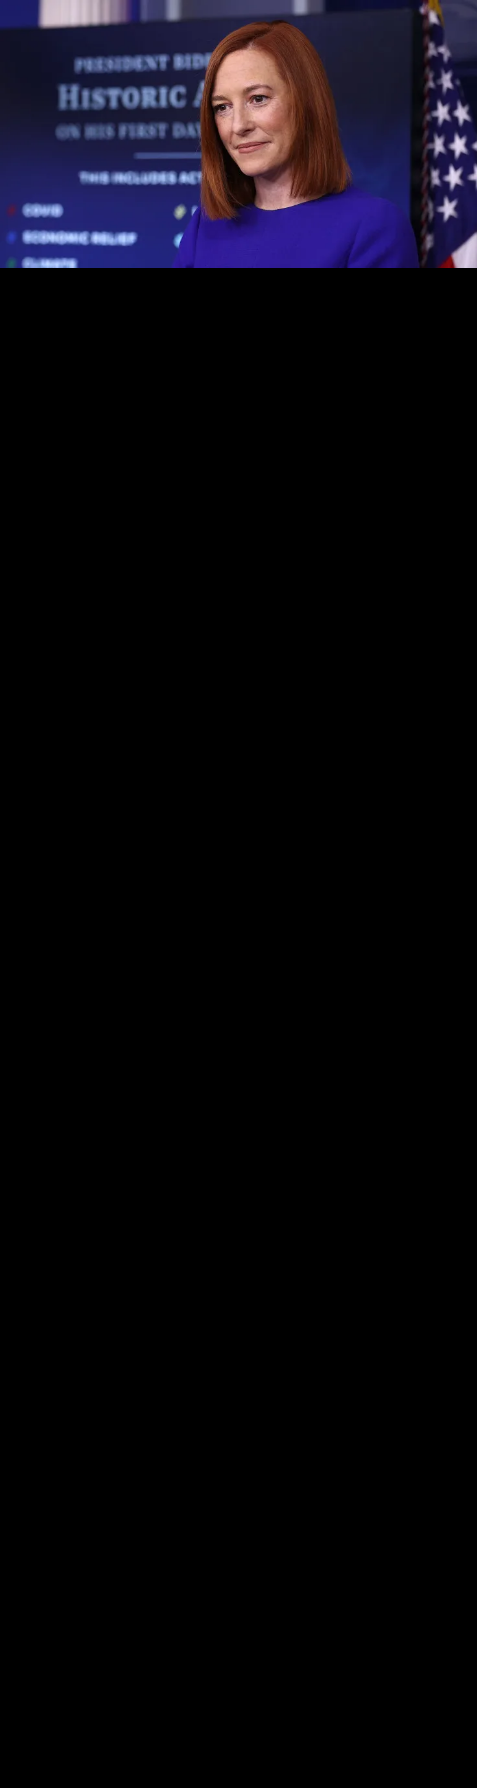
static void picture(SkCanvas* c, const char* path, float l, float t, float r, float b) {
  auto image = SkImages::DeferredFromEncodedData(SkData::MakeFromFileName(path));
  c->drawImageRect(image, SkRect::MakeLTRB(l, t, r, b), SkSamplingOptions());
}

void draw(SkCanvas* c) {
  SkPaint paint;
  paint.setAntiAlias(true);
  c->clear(0xff000000);
  picture(c, "img_01.png", 0, 0, 477, 268);
}
